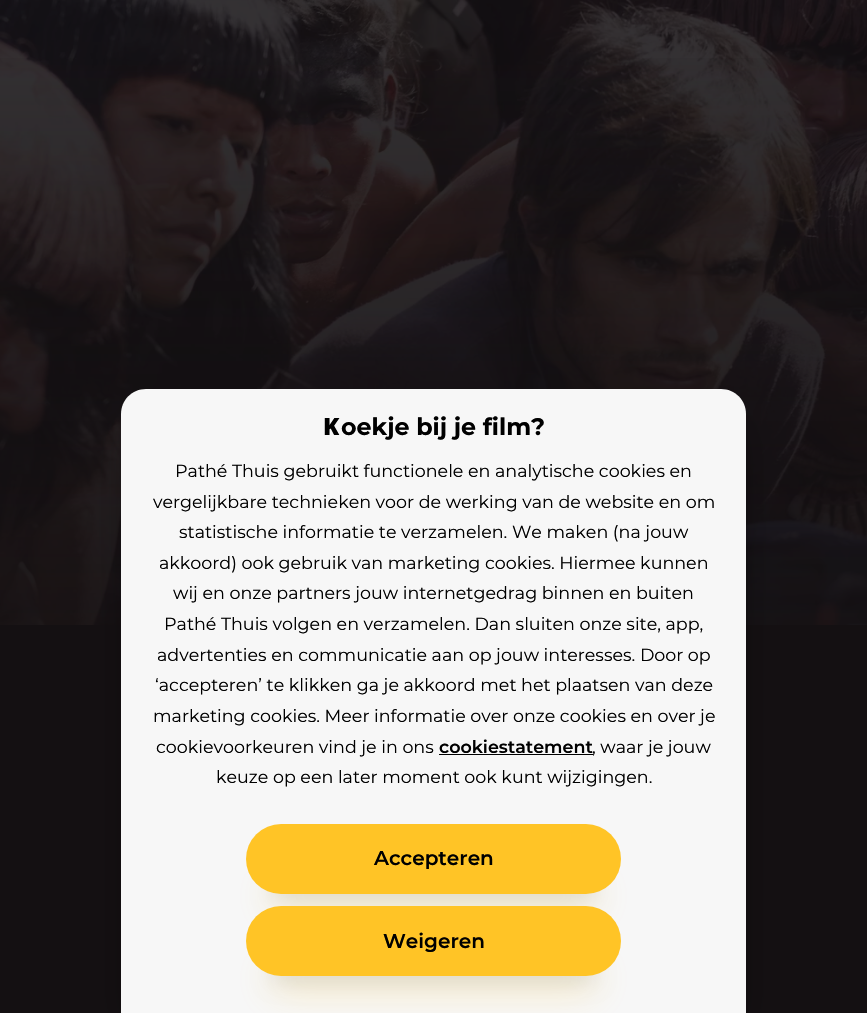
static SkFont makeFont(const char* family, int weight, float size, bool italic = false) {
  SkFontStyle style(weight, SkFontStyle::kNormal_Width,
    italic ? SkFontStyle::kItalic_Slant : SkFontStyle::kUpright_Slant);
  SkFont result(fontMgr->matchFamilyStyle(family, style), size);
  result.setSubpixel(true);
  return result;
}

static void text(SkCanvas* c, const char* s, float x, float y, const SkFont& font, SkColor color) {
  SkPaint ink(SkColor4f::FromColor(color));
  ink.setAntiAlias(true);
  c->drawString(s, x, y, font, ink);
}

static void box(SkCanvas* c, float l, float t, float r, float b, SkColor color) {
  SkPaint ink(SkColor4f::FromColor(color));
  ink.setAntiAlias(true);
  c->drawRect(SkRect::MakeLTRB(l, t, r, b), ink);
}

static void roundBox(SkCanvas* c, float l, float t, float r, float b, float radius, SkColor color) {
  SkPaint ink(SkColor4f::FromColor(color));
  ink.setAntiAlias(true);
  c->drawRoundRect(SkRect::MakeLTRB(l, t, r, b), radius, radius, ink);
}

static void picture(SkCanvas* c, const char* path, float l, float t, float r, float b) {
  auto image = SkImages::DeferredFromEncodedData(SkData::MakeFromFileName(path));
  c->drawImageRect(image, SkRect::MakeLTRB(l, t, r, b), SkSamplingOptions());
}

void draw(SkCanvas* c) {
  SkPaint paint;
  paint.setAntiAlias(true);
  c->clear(0xff141012);
  picture(c, "img_01.png", 0, 0, 867, 625);
  {
    const SkColor colors[] = {0x00141012, 0xbf141012};
    const float stops[] = {0, 1};
    const SkPoint ends[] = {{434, 0}, {434, 635}};
    paint.setShader(SkGradientShader::MakeLinear(ends, colors, stops, 2, SkTileMode::kClamp));
    paint.setAlpha(255);
  }
  c->drawRect(SkRect::MakeLTRB(0, 58, 867, 625), paint);
  paint.setShader(nullptr);
  paint.setColor(0x80000000);
  paint.setMaskFilter(SkMaskFilter::MakeBlur(kNormal_SkBlurStyle, 19));
  c->drawRoundRect(SkRect::MakeLTRB(134, 426, 734, 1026), 13, 13, paint);
  paint.setMaskFilter(nullptr);
  paint.setColor(0xfff7f7f7);
  c->drawPath(SkPathBuilder().moveTo(146, 389).lineTo(721, 389).cubicTo(735, 389, 746, 400, 746, 414).lineTo(746, 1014).lineTo(121, 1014).lineTo(121, 414).cubicTo(121, 400, 132, 389, 146, 389).close().detach(), paint);
  SkFont face1 = makeFont("Noto Sans", 900, 23.75f);
  text(c, "K", 323, 435, face1, 0xff000000);
  SkFont face2 = makeFont("Montserrat", 700, 23.75f);
  text(c, "oekje bij je film?", 341, 435, face2, 0xff000000);
  SkFont face3 = makeFont("Montserrat", 400, 17.5f);
  text(c, "Pathé Thuis gebruikt functionele en analytische cookies en", 175, 477, face3, 0xff000000);
  text(c, "vergelijkbare technieken voor de werking van de website en om", 153, 508, face3, 0xff000000);
  text(c, "statistische informatie te verzamelen. We maken (na jouw", 179, 538, face3, 0xff000000);
  text(c, "akkoord) ook gebruik van marketing cookies. Hiermee kunnen", 159, 569, face3, 0xff000000);
  text(c, "wij en onze partners jouw internetgedrag binnen en buiten", 173, 599, face3, 0xff000000);
  text(c, "Pathé Thuis volgen en verzamelen. Dan sluiten onze site, app,", 164, 630, face3, 0xff000000);
  text(c, "advertenties en communicatie aan op jouw interesses. Door op", 157, 661, face3, 0xff000000);
  text(c, "‘accepteren’ te klikken ga je akkoord met het plaatsen van deze", 155, 691, face3, 0xff000000);
  text(c, "marketing cookies. Meer informatie over onze cookies en over je", 153, 722, face3, 0xff000000);
  text(c, "cookievoorkeuren vind je in ons", 156, 753, face3, 0xff000000);
  SkFont face4 = makeFont("Montserrat", 600, 17.5f);
  text(c, "cookiestatement", 439, 753, face4, 0xff000000);
  box(c, 439, 754, 593, 755, 0xff000000);
  text(c, ", waar je jouw", 592, 753, face3, 0xff000000);
  text(c, "keuze op een later moment ook kunt wijzigingen.", 216, 783, face3, 0xff000000);
  paint.setColor(0x4dffc426);
  paint.setMaskFilter(SkMaskFilter::MakeBlur(kNormal_SkBlurStyle, 19));
  c->drawRoundRect(SkRect::MakeLTRB(271, 886, 596, 906), 10, 10, paint);
  paint.setMaskFilter(nullptr);
  paint.setColor(0x1a000000);
  paint.setMaskFilter(SkMaskFilter::MakeBlur(kNormal_SkBlurStyle, 9.5f));
  c->drawRoundRect(SkRect::MakeLTRB(271, 880, 596, 900), 10, 10, paint);
  paint.setMaskFilter(nullptr);
  roundBox(c, 246, 824, 621, 894, 35, 0xffffc426);
  SkFont face5 = makeFont("Montserrat", 600, 20);
  text(c, "Accepteren", 374, 865, face5, 0xff000000);
  paint.setColor(0x4dffc426);
  paint.setMaskFilter(SkMaskFilter::MakeBlur(kNormal_SkBlurStyle, 19));
  c->drawRoundRect(SkRect::MakeLTRB(271, 969, 596, 989), 10, 10, paint);
  paint.setMaskFilter(nullptr);
  paint.setColor(0x1a000000);
  paint.setMaskFilter(SkMaskFilter::MakeBlur(kNormal_SkBlurStyle, 9.5f));
  c->drawRoundRect(SkRect::MakeLTRB(271, 963, 596, 983), 10, 10, paint);
  paint.setMaskFilter(nullptr);
  roundBox(c, 246, 906, 621, 976, 35, 0xffffc426);
  text(c, "Weigeren", 383, 948, face5, 0xff000000);
}
